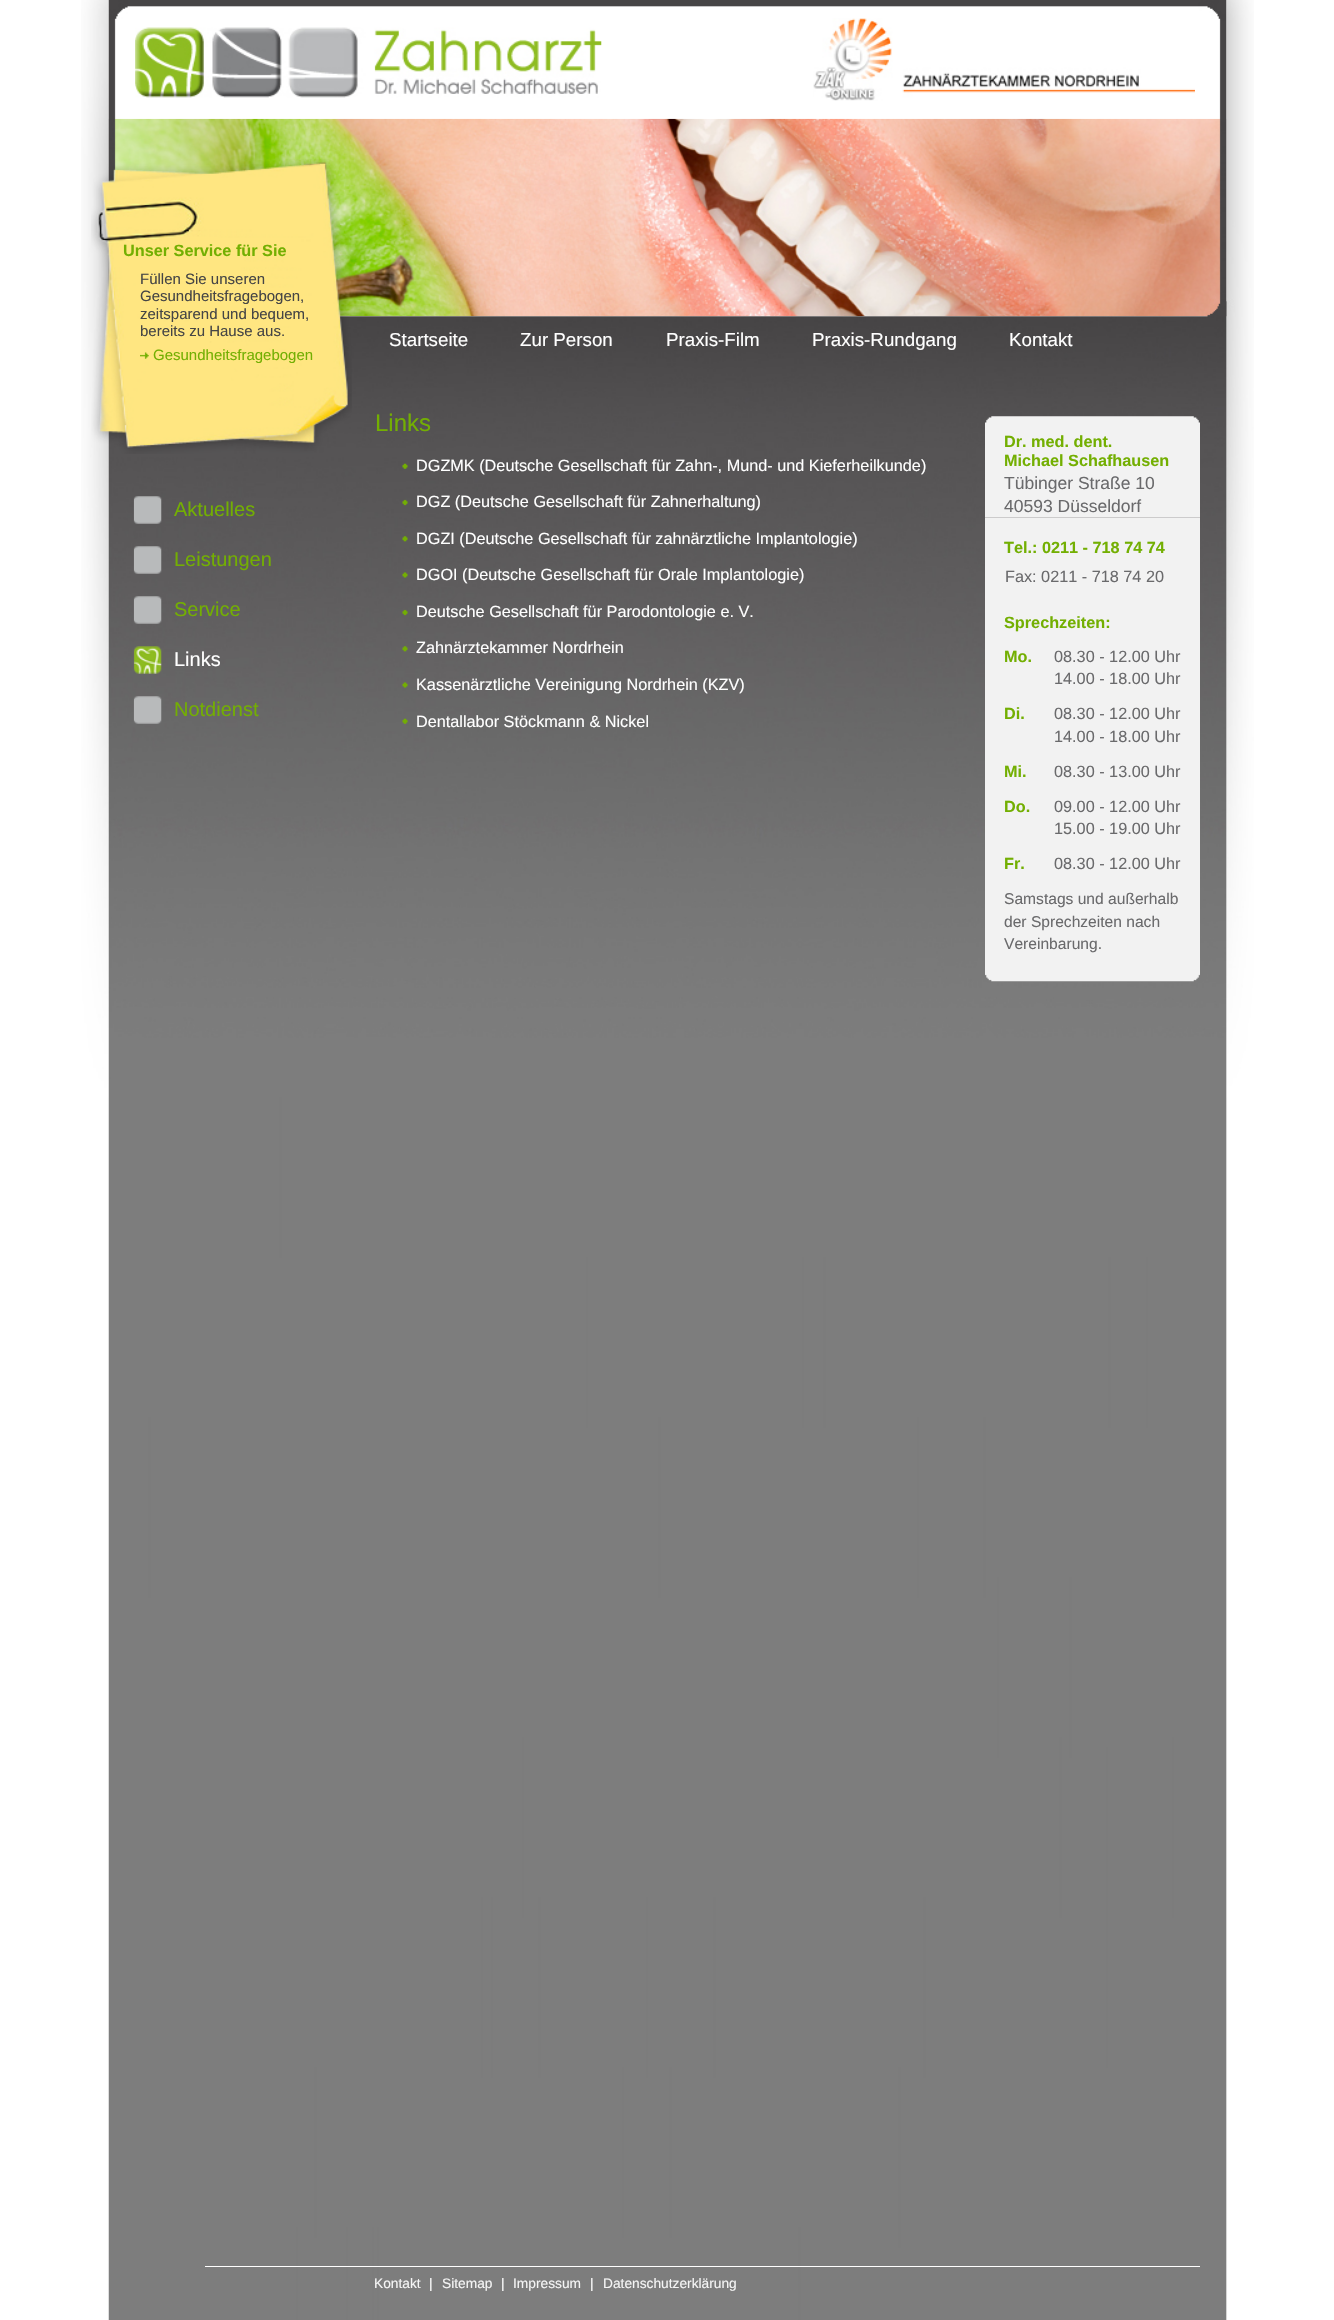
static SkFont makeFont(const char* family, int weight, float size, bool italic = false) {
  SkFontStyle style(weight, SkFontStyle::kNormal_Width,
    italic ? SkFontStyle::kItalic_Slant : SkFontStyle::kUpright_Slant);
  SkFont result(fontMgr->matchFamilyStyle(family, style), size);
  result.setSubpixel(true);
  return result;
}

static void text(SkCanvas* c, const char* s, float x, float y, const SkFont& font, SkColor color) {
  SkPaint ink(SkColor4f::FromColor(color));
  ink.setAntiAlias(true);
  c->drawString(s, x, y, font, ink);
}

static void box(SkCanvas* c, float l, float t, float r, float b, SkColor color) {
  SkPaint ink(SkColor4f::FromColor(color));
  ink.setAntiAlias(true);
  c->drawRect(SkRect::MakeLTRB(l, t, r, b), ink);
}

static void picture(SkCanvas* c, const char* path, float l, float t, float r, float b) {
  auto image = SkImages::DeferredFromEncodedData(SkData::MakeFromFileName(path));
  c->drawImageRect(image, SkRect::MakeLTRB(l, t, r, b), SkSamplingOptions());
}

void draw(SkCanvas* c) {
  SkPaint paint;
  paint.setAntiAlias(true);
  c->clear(0xffffffff);
  picture(c, "img_01.png", 81, 0, 1254, 2320);
  picture(c, "img_04.png", 108, 0, 1227, 317);
  picture(c, "img_07.png", 108, 118, 1227, 317);
  picture(c, "img_02.png", 91, 159, 352, 454);
  SkFont face1 = makeFont("Liberation Sans", 700, 16.25f);
  text(c, "Unser Service für Sie", 123, 256, face1, 0xff73af02);
  SkFont face2 = makeFont("Liberation Sans", 400, 15);
  text(c, "Füllen Sie unseren", 140, 284, face2, 0xff454545);
  text(c, "Gesundheitsfragebogen,", 140, 301, face2, 0xff454545);
  text(c, "zeitsparend und bequem,", 140, 319, face2, 0xff454545);
  text(c, "bereits zu Hause aus.", 140, 336, face2, 0xff454545);
  picture(c, "img_03.png", 140, 352, 149, 359);
  text(c, "Gesundheitsfragebogen", 153, 360, face2, 0xff73af02);
  picture(c, "img_05.png", 135, 27, 602, 98);
  picture(c, "img_06.png", 813, 18, 1195, 101);
  SkFont face3 = makeFont("Liberation Sans", 400, 18.75f);
  text(c, "Startseite", 389, 346, face3, 0xffffffff);
  text(c, "Zur Person", 520, 346, face3, 0xffffffff);
  text(c, "Praxis-Film", 666, 346, face3, 0xffffffff);
  text(c, "Praxis-Rundgang", 812, 346, face3, 0xffffffff);
  text(c, "Kontakt", 1009, 346, face3, 0xffffffff);
  picture(c, "img_08.png", 133, 496, 162, 524);
  SkFont face4 = makeFont("Liberation Sans", 400, 20);
  text(c, "Aktuelles", 174, 516, face4, 0xff73af02);
  picture(c, "img_09.png", 133, 546, 162, 574);
  text(c, "Leistungen", 174, 566, face4, 0xff73af02);
  picture(c, "img_10.png", 133, 596, 162, 624);
  text(c, "Service", 174, 616, face4, 0xff73af02);
  picture(c, "img_11.png", 133, 646, 162, 674);
  text(c, "Links", 174, 666, face4, 0xffffffff);
  picture(c, "img_12.png", 133, 696, 162, 724);
  text(c, "Notdienst", 174, 716, face4, 0xff73af02);
  SkFont face5 = makeFont("Liberation Sans", 400, 24);
  text(c, "Links", 375, 431, face5, 0xff73af02);
  picture(c, "img_13.png", 402, 463, 408, 469);
  SkFont face6 = makeFont("Liberation Sans", 400, 16.25f);
  text(c, "DGZMK (Deutsche Gesellschaft für Zahn-, Mund- und Kieferheilkunde)", 416, 471, face6, 0xffffffff);
  picture(c, "img_14.png", 402, 499, 408, 506);
  text(c, "DGZ (Deutsche Gesellschaft für Zahnerhaltung)", 416, 507, face6, 0xffffffff);
  picture(c, "img_15.png", 402, 536, 408, 542);
  text(c, "DGZI (Deutsche Gesellschaft für zahnärztliche Implantologie)", 416, 544, face6, 0xffffffff);
  picture(c, "img_16.png", 402, 572, 408, 578);
  text(c, "DGOI (Deutsche Gesellschaft für Orale Implantologie)", 416, 580, face6, 0xffffffff);
  picture(c, "img_17.png", 402, 609, 408, 616);
  text(c, "Deutsche Gesellschaft für Parodontologie e. V.", 416, 617, face6, 0xffffffff);
  picture(c, "img_18.png", 402, 646, 408, 652);
  text(c, "Zahnärztekammer Nordrhein", 416, 653, face6, 0xffffffff);
  picture(c, "img_19.png", 402, 682, 408, 688);
  text(c, "Kassenärztliche Vereinigung Nordrhein (KZV)", 416, 690, face6, 0xffffffff);
  picture(c, "img_20.png", 402, 718, 408, 724);
  text(c, "Dentallabor Stöckmann & Nickel", 416, 727, face6, 0xffffffff);
  picture(c, "img_21.png", 985, 416, 1200, 518);
  text(c, "Dr. med. dent.", 1004, 447, face1, 0xff73af02);
  text(c, "Michael Schafhausen", 1004, 466, face1, 0xff73af02);
  SkFont face7 = makeFont("Liberation Sans", 400, 17.5f);
  text(c, "Tübinger Straße 10", 1004, 489, face7, 0xff6a6a6c);
  text(c, "40593 Düsseldorf", 1004, 512, face7, 0xff6a6a6c);
  picture(c, "img_22.png", 985, 517, 1200, 982);
  text(c, "Tel.: 0211 - 718 74 74", 1004, 553, face1, 0xff73af02);
  text(c, "Fax: 0211 - 718 74 20", 1005, 582, face6, 0xff6a6a6c);
  text(c, "Sprechzeiten:", 1004, 628, face1, 0xff73af02);
  text(c, "Mo.", 1004, 662, face1, 0xff73af02);
  text(c, "08.30 - 12.00 Uhr", 1054, 662, face6, 0xff6a6a6c);
  text(c, "14.00 - 18.00 Uhr", 1054, 684, face6, 0xff6a6a6c);
  text(c, "Di.", 1004, 719, face1, 0xff73af02);
  text(c, "08.30 - 12.00 Uhr", 1054, 719, face6, 0xff6a6a6c);
  text(c, "14.00 - 18.00 Uhr", 1054, 742, face6, 0xff6a6a6c);
  text(c, "Mi.", 1004, 777, face1, 0xff73af02);
  text(c, "08.30 - 13.00 Uhr", 1054, 777, face6, 0xff6a6a6c);
  text(c, "Do.", 1004, 812, face1, 0xff73af02);
  text(c, "09.00 - 12.00 Uhr", 1054, 812, face6, 0xff6a6a6c);
  text(c, "15.00 - 19.00 Uhr", 1054, 834, face6, 0xff6a6a6c);
  text(c, "Fr.", 1004, 869, face1, 0xff73af02);
  text(c, "08.30 - 12.00 Uhr", 1054, 869, face6, 0xff6a6a6c);
  SkFont face8 = makeFont("Liberation Sans", 400, 15.6f);
  text(c, "Samstags und außerhalb", 1004, 904, face8, 0xff6a6a6c);
  text(c, "der Sprechzeiten nach", 1004, 927, face8, 0xff6a6a6c);
  text(c, "Vereinbarung.", 1004, 949, face8, 0xff6a6a6c);
  box(c, 205, 2266, 1200, 2267, 0xffffffff);
  SkFont face9 = makeFont("Liberation Sans", 400, 13.75f);
  text(c, "Kontakt", 374, 2288, face9, 0xfff5f5f5);
  text(c, "|", 429, 2288, face9, 0xffffffff);
  text(c, "Sitemap", 442, 2288, face9, 0xfff5f5f5);
  text(c, "|", 501, 2288, face9, 0xffffffff);
  text(c, "Impressum", 513, 2288, face9, 0xfff5f5f5);
  text(c, "|", 590, 2288, face9, 0xffffffff);
  text(c, "Datenschutzerklärung", 603, 2288, face9, 0xfff5f5f5);
}
